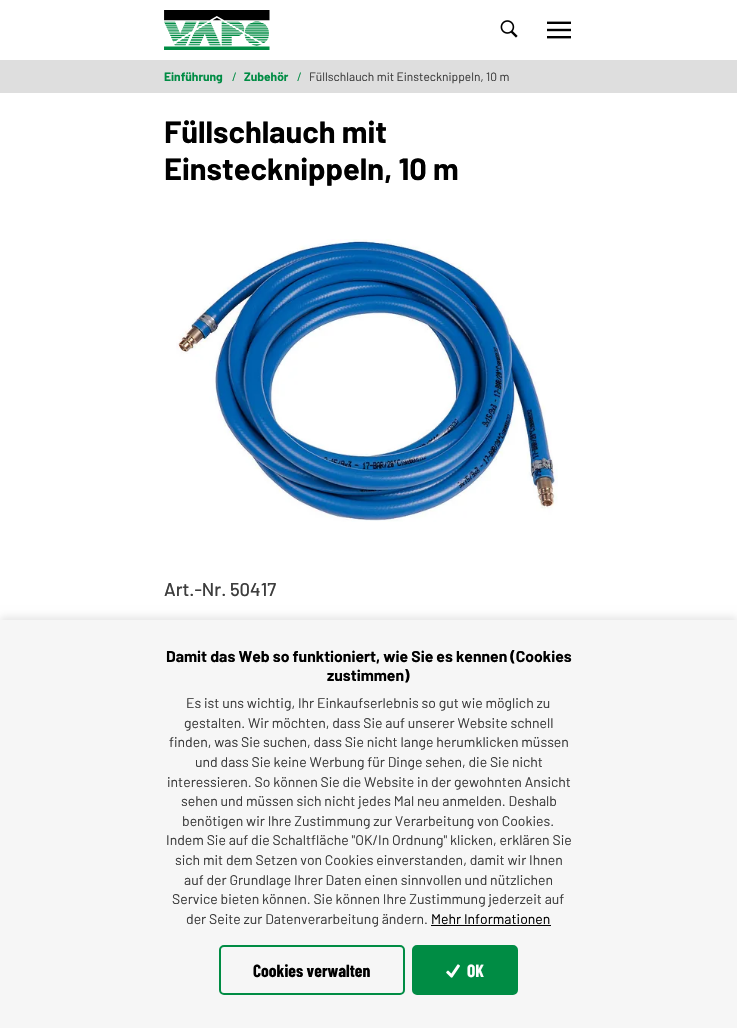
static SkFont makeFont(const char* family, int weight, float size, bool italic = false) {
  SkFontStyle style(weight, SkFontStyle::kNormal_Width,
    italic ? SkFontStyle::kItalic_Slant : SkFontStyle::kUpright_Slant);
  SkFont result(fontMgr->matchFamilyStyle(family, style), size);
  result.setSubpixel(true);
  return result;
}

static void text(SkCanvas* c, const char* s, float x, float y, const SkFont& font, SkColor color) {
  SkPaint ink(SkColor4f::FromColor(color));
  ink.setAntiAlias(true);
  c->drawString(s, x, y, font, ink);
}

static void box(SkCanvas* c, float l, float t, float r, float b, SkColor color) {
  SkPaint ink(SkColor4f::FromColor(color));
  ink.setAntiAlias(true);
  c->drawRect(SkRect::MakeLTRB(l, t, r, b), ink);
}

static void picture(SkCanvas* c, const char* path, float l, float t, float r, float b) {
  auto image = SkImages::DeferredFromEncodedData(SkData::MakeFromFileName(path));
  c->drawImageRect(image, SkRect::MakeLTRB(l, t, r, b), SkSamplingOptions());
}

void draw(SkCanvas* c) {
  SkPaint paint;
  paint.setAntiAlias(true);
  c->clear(0xffffffff);
  picture(c, "img_01.png", 164, 10, 270, 50);
  picture(c, "img_02.png", 500, 20, 518, 38);
  picture(c, "img_03.png", 547, 21, 571, 39);
  box(c, 0, 60, 737, 93, 0xffdedede);
  SkFont face1 = makeFont("Barlow", 700, 12);
  text(c, "Einführung", 164, 81, face1, 0xff008c44);
  SkFont face2 = makeFont("Barlow", 400, 12);
  text(c, "/", 232, 81, face2, 0xff008c44);
  text(c, "Zubehör", 244, 81, face1, 0xff008c44);
  text(c, "/", 297, 81, face2, 0xff008c44);
  text(c, "Füllschlauch mit Einstecknippeln, 10 m", 309, 81, face2, 0xff3d3d3d);
  SkFont face3 = makeFont("Barlow", 700, 30.75f);
  text(c, "Füllschlauch mit", 164, 143, face3, 0xff000000);
  text(c, "Einstecknippeln, 10 m", 164, 180, face3, 0xff000000);
  picture(c, "img_04.png", 176, 239, 558, 522);
  SkFont face4 = makeFont("Barlow", 500, 18.5f);
  text(c, "Art.-Nr. 50417", 164, 596, face4, 0xff3d3d3d);
  paint.setColor(0x1a000000);
  paint.setMaskFilter(SkMaskFilter::MakeBlur(kNormal_SkBlurStyle, 4));
  c->drawRect(SkRect::MakeLTRB(0, 617, 737, 1025), paint);
  paint.setMaskFilter(nullptr);
  box(c, 0, 620, 737, 1028, 0xfff6f6f6);
  SkFont face5 = makeFont("Barlow", 700, 15.7f);
  text(c, "Damit das Web so funktioniert, wie Sie es kennen (Cookies", 166, 662, face5, 0xff000000);
  text(c, "zustimmen)", 327, 681, face5, 0xff000000);
  SkFont face6 = makeFont("Barlow", 400, 14);
  text(c, "Es ist uns wichtig, Ihr Einkaufserlebnis so gut wie möglich zu", 186, 708, face6, 0xff3d3d3d);
  text(c, "gestalten. Wir möchten, dass Sie auf unserer Website schnell", 184, 728, face6, 0xff3d3d3d);
  text(c, "finden, was Sie suchen, dass Sie nicht lange herumklicken müssen", 169, 747, face6, 0xff3d3d3d);
  text(c, "und dass Sie keine Werbung für Dinge sehen, die Sie nicht", 195, 767, face6, 0xff3d3d3d);
  text(c, "interessieren. So können Sie die Website in der gewohnten Ansicht", 167, 787, face6, 0xff3d3d3d);
  text(c, "sehen und müssen sich nicht jedes Mal neu anmelden. Deshalb", 181, 806, face6, 0xff3d3d3d);
  text(c, "benötigen wir Ihre Zustimmung zur Verarbeitung von Cookies.", 182, 826, face6, 0xff3d3d3d);
  text(c, "Indem Sie auf die Schaltfläche \"OK/In Ordnung\" klicken, erklären Sie", 166, 845, face6, 0xff3d3d3d);
  text(c, "sich mit dem Setzen von Cookies einverstanden, damit wir Ihnen", 175, 865, face6, 0xff3d3d3d);
  text(c, "auf der Grundlage Ihrer Daten einen sinnvollen und nützlichen", 184, 885, face6, 0xff3d3d3d);
  text(c, "Service bieten können. Sie können Ihre Zustimmung jederzeit auf", 172, 904, face6, 0xff3d3d3d);
  text(c, "der Seite zur Datenverarbeitung ändern.", 186, 924, face6, 0xff3d3d3d);
  text(c, "Mehr Informationen", 431, 924, face6, 0xff000000);
  box(c, 431, 925, 551, 926, 0xff000000);
  paint.setStyle(SkPaint::kStroke_Style);
  paint.setStrokeWidth(2);
  paint.setColor(0xff008c44);
  c->drawRoundRect(SkRect::MakeLTRB(220, 946, 404, 994), 4, 4, paint);
  SkFont face7 = makeFont("Barlow Condensed", 700, 17.5f);
  text(c, "Cookies verwalten", 253, 977, face7, 0xff000000);
  paint.setStyle(SkPaint::kFill_Style);
  c->drawRoundRect(SkRect::MakeLTRB(413, 946, 517, 994), 4, 4, paint);
  paint.setStyle(SkPaint::kStroke_Style);
  c->drawRoundRect(SkRect::MakeLTRB(413, 946, 517, 994), 4, 4, paint);
  picture(c, "img_05.png", 446, 964, 460, 978);
  text(c, "OK", 467, 977, face7, 0xffffffff);
}
